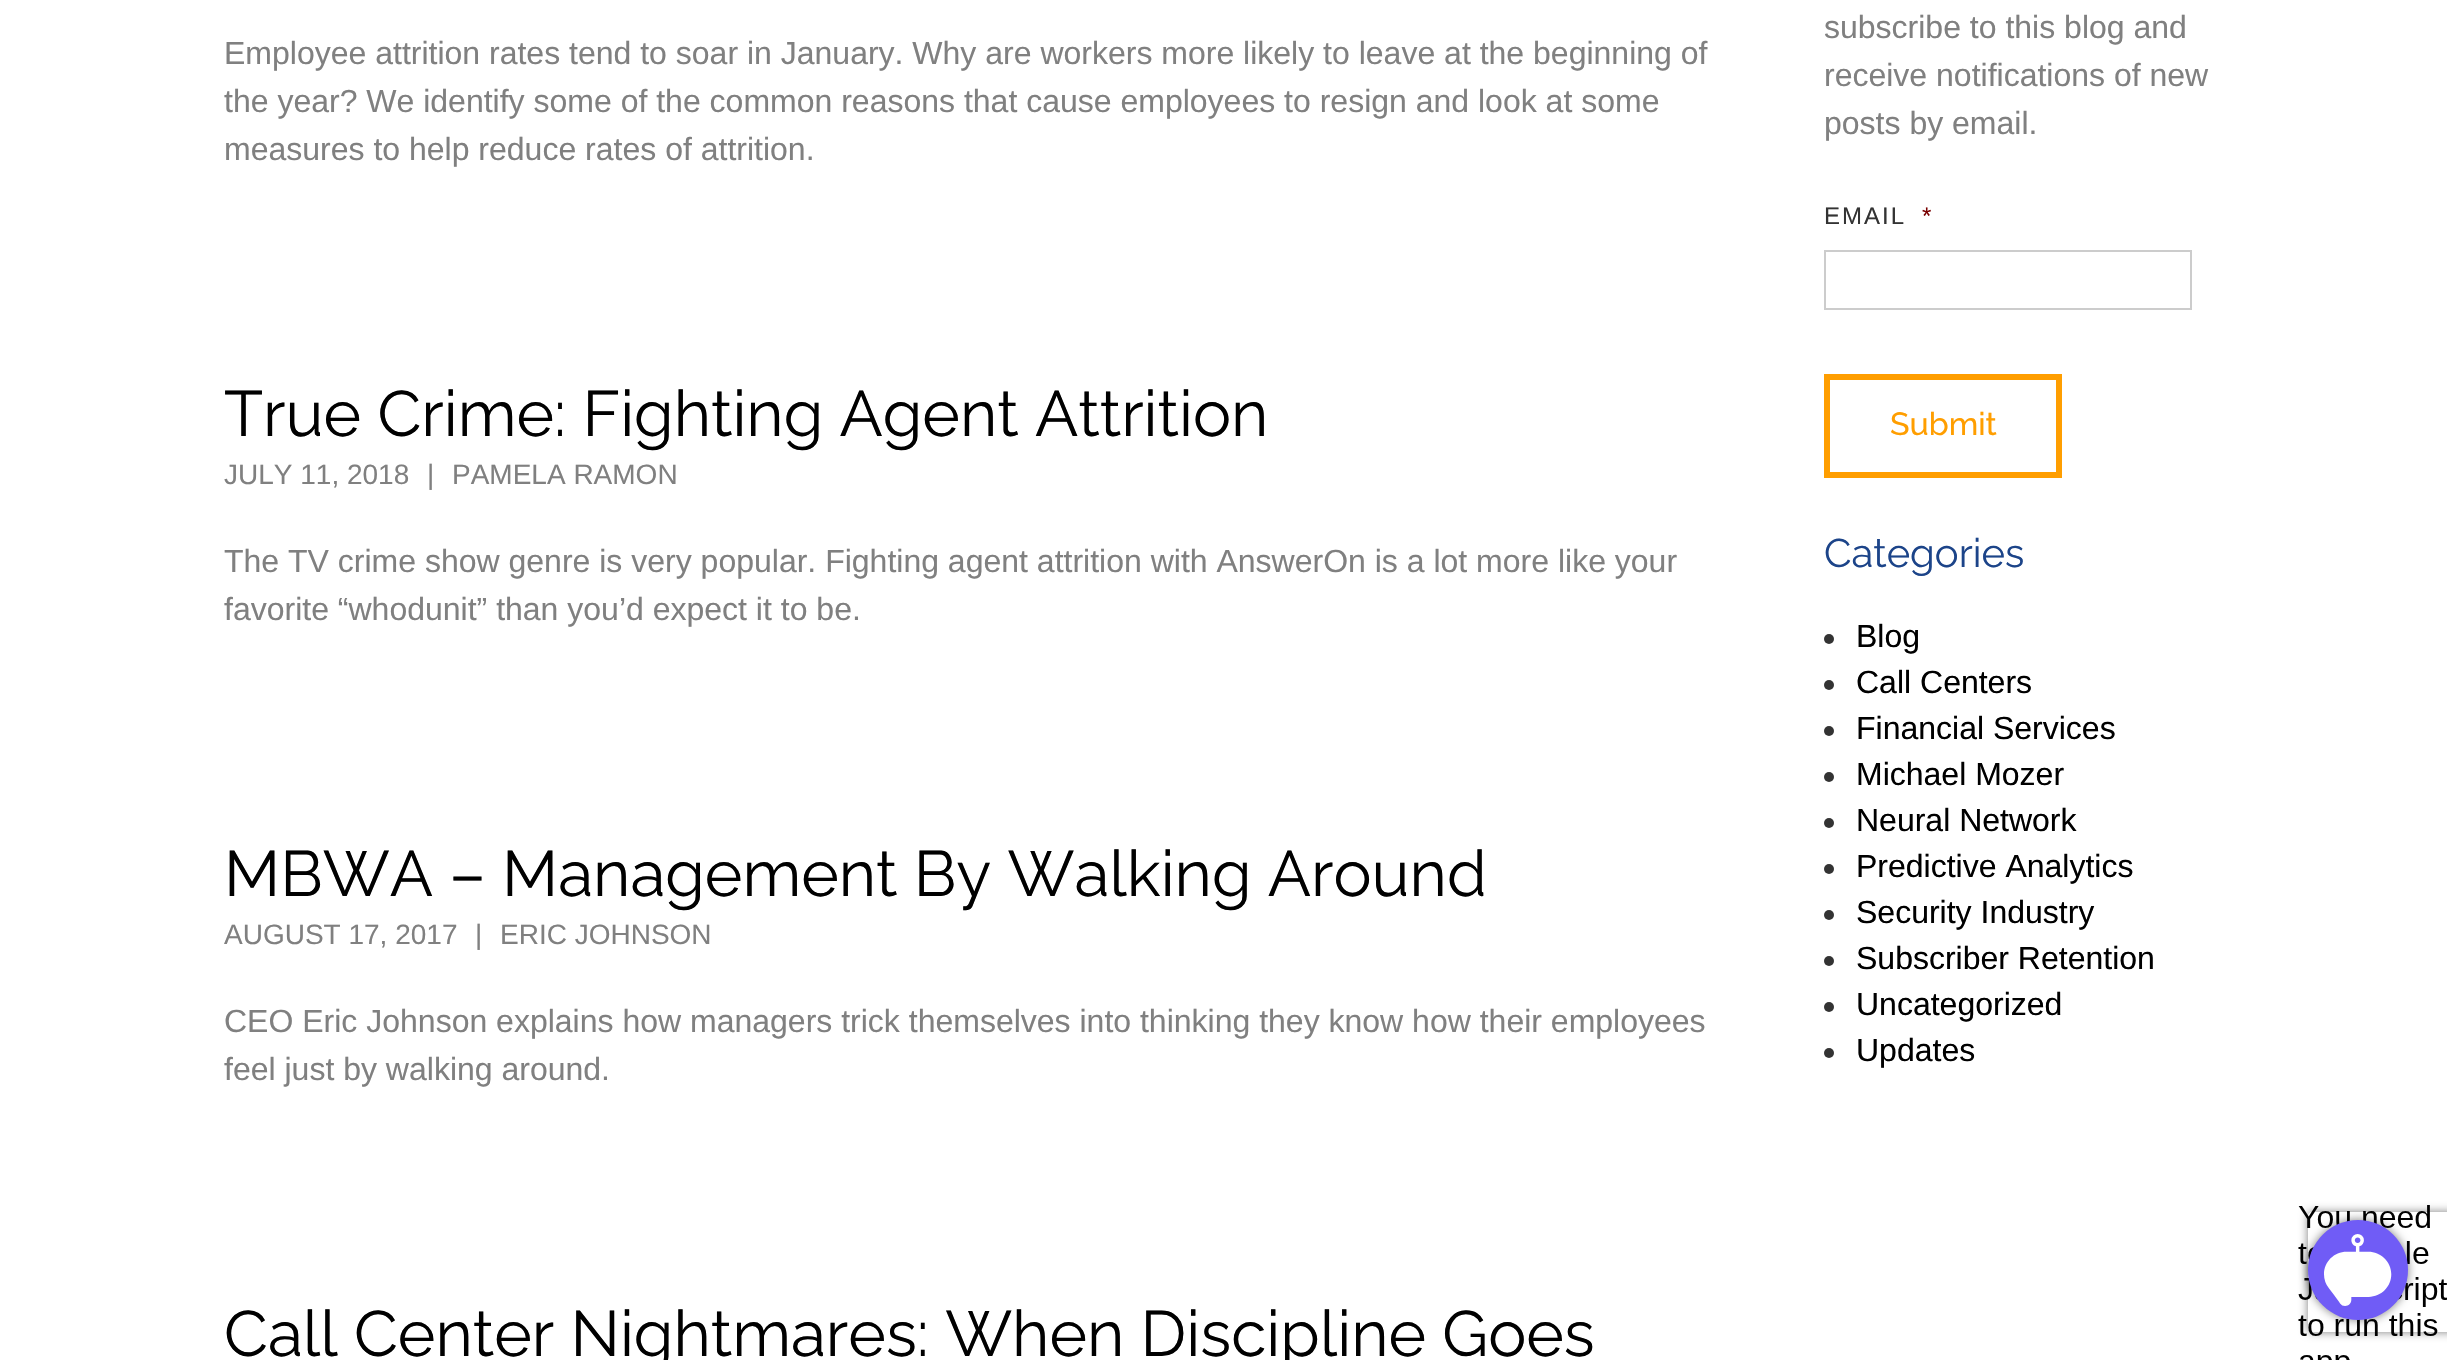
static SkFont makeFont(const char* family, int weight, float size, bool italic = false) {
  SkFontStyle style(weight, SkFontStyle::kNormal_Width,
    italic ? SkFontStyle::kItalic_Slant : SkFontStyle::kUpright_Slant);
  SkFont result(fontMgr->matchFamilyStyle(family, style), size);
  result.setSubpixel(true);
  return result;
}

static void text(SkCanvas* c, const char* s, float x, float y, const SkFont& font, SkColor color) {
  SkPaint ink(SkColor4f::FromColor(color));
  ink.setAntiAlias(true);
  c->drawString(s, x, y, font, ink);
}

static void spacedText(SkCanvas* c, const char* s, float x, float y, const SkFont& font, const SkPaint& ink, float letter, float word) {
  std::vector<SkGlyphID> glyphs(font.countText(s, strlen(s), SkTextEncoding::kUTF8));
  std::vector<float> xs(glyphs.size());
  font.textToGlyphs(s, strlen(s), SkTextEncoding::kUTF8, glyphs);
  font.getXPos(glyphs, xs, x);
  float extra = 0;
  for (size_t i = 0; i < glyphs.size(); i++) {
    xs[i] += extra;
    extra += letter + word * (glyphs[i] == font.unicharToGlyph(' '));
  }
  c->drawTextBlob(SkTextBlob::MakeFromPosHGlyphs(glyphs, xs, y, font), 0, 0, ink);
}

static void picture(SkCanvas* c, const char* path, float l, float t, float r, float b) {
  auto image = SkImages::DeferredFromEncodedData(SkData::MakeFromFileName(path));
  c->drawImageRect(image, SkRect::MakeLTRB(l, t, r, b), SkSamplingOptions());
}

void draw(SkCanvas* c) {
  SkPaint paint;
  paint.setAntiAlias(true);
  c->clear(0xffffffff);
  SkFont face1 = makeFont("Liberation Sans", 400, 32);
  text(c, "Employee attrition rates tend to soar in January. Why are workers more likely to leave at the beginning of", 224, 64, face1, 0xff808080);
  text(c, "the year? We identify some of the common reasons that cause employees to resign and look at some", 224, 112, face1, 0xff808080);
  text(c, "measures to help reduce rates of attrition.", 224, 160, face1, 0xff808080);
  SkFont face2 = makeFont("Raleway", 400, 64);
  text(c, "True Crime: Fighting Agent Attrition", 224, 436, face2, 0xff000000);
  SkFont face3 = makeFont("Liberation Sans", 400, 28);
  text(c, "JULY 11, 2018", 224, 484, face3, 0xff808080);
  text(c, "|", 427, 484, face3, 0xff808080);
  text(c, "PAMELA RAMON", 452, 484, face3, 0xff808080);
  text(c, "The TV crime show genre is very popular. Fighting agent attrition with AnswerOn is a lot more like your", 224, 572, face1, 0xff808080);
  text(c, "favorite “whodunit” than you’d expect it to be.", 224, 620, face1, 0xff808080);
  text(c, "MBWA – Management By Walking Around", 224, 896, face2, 0xff000000);
  text(c, "AUGUST 17, 2017", 224, 944, face3, 0xff808080);
  text(c, "|", 475, 944, face3, 0xff808080);
  text(c, "ERIC JOHNSON", 500, 944, face3, 0xff808080);
  text(c, "CEO Eric Johnson explains how managers trick themselves into thinking they know how their employees", 224, 1032, face1, 0xff808080);
  text(c, "feel just by walking around.", 224, 1080, face1, 0xff808080);
  text(c, "Call Center Nightmares: When Discipline Goes", 224, 1356, face2, 0xff000000);
  text(c, "subscribe to this blog and", 1824, 38, face1, 0xff808080);
  text(c, "receive notifications of new", 1824, 86, face1, 0xff808080);
  text(c, "posts by email.", 1824, 134, face1, 0xff808080);
  SkFont face4 = makeFont("Liberation Sans", 400, 24);
  paint.setColor(0xff333333);
  spacedText(c, "EMAIL", 1824, 224, face4, paint, 2, 0);
  paint.setColor(0xff790000);
  spacedText(c, "*", 1922, 224, face4, paint, 2, 0);
  paint.setStyle(SkPaint::kStroke_Style);
  paint.setStrokeWidth(2);
  paint.setColor(0xffcccccc);
  c->drawRect(SkRect::MakeLTRB(1825, 251, 2191, 309), paint);
  paint.setStrokeWidth(6);
  paint.setColor(0xffff9e00);
  c->drawRect(SkRect::MakeLTRB(1827, 377, 2059, 475), paint);
  SkFont face5 = makeFont("Raleway", 500, 32);
  text(c, "Submit", 1890, 435, face5, 0xffff9e00);
  SkFont face6 = makeFont("Raleway", 400, 40);
  text(c, "Categories", 1824, 567, face6, 0xff1c4489);
  paint.setStyle(SkPaint::kFill_Style);
  paint.setColor(0xff333333);
  c->drawCircle(1829, 639, 5, paint);
  text(c, "Blog", 1856, 647, face1, 0xff000000);
  c->drawCircle(1829, 685, 5, paint);
  text(c, "Call Centers", 1856, 693, face1, 0xff000000);
  c->drawCircle(1829, 731, 5, paint);
  text(c, "Financial Services", 1856, 739, face1, 0xff000000);
  c->drawCircle(1829, 777, 5, paint);
  text(c, "Michael Mozer", 1856, 785, face1, 0xff000000);
  c->drawCircle(1829, 823, 5, paint);
  text(c, "Neural Network", 1856, 831, face1, 0xff000000);
  c->drawCircle(1829, 869, 5, paint);
  text(c, "Predictive Analytics", 1856, 877, face1, 0xff000000);
  c->drawCircle(1829, 915, 5, paint);
  text(c, "Security Industry", 1856, 923, face1, 0xff000000);
  c->drawCircle(1829, 961, 5, paint);
  text(c, "Subscriber Retention", 1856, 969, face1, 0xff000000);
  c->drawCircle(1829, 1007, 5, paint);
  text(c, "Uncategorized", 1856, 1015, face1, 0xff000000);
  c->drawCircle(1829, 1053, 5, paint);
  text(c, "Updates", 1856, 1061, face1, 0xff000000);
  c->save();
  c->clipPath(SkPathBuilder(SkPathFillType::kEvenOdd).moveTo(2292, 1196).lineTo(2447, 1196).lineTo(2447, 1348).lineTo(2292, 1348).close().moveTo(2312, 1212).lineTo(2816, 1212).cubicTo(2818, 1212, 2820, 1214, 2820, 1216).lineTo(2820, 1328).cubicTo(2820, 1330, 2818, 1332, 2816, 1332).lineTo(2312, 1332).cubicTo(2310, 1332, 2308, 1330, 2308, 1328).lineTo(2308, 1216).cubicTo(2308, 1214, 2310, 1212, 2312, 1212).close().detach(), true);
  paint.setColor(0xff808080);
  paint.setMaskFilter(SkMaskFilter::MakeBlur(kNormal_SkBlurStyle, 5));
  c->drawRoundRect(SkRect::MakeLTRB(2308, 1212, 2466, 1332), 4, 4, paint);
  paint.setMaskFilter(nullptr);
  c->restore();
  picture(c, "img_01.png", 2298, 1205, 2447, 1360);
}
